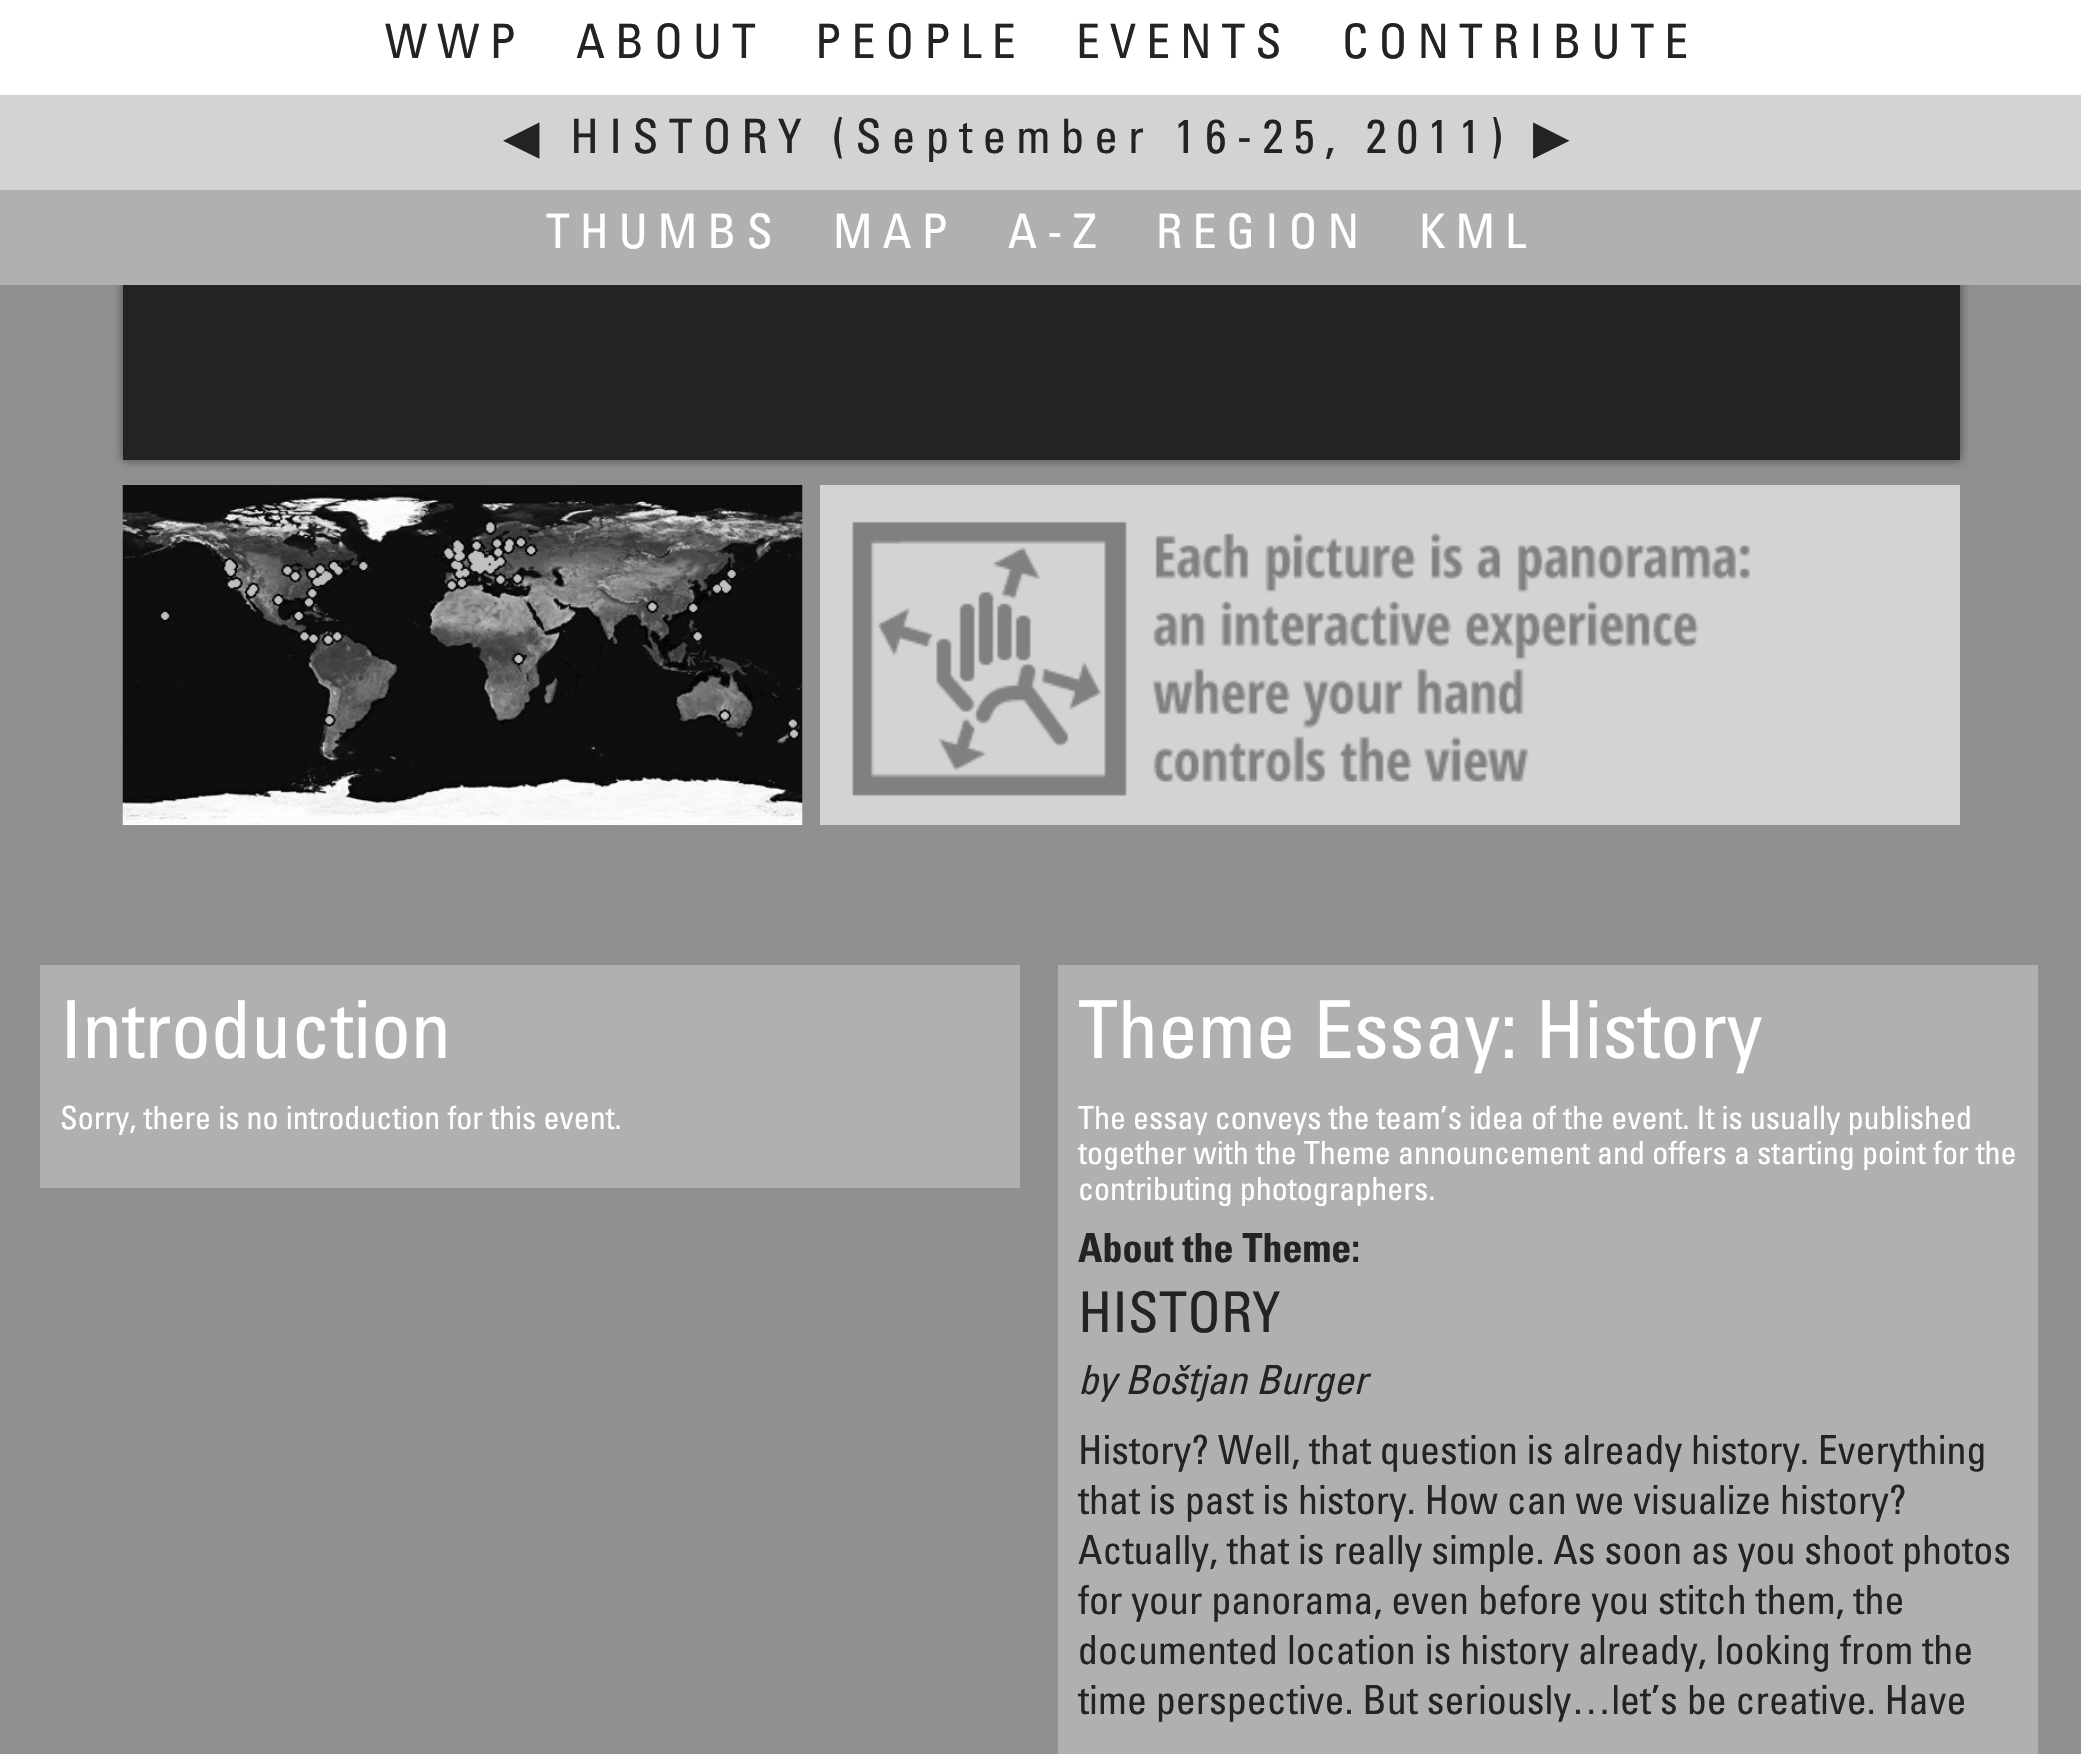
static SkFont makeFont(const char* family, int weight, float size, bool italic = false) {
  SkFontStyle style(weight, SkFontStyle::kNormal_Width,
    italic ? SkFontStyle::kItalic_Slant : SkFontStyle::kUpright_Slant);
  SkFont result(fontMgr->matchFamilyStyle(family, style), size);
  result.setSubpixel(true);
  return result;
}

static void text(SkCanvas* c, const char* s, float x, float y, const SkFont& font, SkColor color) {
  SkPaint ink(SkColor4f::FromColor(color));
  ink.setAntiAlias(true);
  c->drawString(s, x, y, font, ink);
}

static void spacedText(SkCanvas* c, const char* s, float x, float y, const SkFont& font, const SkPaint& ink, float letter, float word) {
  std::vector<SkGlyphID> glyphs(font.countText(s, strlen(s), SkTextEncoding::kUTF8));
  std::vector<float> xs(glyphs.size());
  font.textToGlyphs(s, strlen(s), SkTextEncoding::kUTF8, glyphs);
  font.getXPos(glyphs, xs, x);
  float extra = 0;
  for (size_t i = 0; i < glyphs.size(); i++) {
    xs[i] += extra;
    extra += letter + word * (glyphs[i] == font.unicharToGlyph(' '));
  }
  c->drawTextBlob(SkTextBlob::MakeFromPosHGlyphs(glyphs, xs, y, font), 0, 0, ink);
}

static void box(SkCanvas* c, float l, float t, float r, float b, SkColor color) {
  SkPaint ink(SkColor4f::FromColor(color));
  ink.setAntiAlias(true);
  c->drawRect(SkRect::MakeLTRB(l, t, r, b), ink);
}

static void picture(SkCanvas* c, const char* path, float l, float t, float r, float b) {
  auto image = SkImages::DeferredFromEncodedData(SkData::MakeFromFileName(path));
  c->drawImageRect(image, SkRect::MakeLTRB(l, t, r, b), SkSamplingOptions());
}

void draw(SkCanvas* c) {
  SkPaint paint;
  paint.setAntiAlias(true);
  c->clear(0xff909090);
  paint.setColor(0x80000000);
  paint.setMaskFilter(SkMaskFilter::MakeBlur(kNormal_SkBlurStyle, 5));
  c->drawRect(SkRect::MakeLTRB(123, -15, 1960, 460), paint);
  paint.setMaskFilter(nullptr);
  box(c, 0, 0, 2081, 95, 0xffffffff);
  SkFont face1 = makeFont("Univers", 400, 47.5f);
  paint.setColor(0xff232323);
  spacedText(c, "WWP", 385, 58, face1, paint, 10, 0);
  spacedText(c, "ABOUT", 576, 58, face1, paint, 10, 0);
  spacedText(c, "PEOPLE", 815, 58, face1, paint, 10, 0);
  spacedText(c, "EVENTS", 1076, 58, face1, paint, 10, 0);
  spacedText(c, "CONTRIBUTE", 1342, 58, face1, paint, 10, 0);
  box(c, 0, 95, 2081, 190, 0xffd3d3d3);
  SkFont face2 = makeFont("DejaVu Sans", 400, 47.5f);
  spacedText(c, "◀", 503, 153, face2, paint, 10, 0);
  spacedText(c, "HISTORY (September 16-25, 2011)", 570, 153, face1, paint, 10, 0);
  spacedText(c, "▶", 1533, 153, face2, paint, 10, 0);
  box(c, 0, 190, 2081, 285, 0xffb0b0b0);
  paint.setColor(0xffffffff);
  spacedText(c, "THUMBS", 546, 248, face1, paint, 10, 0);
  spacedText(c, "MAP", 833, 248, face1, paint, 10, 0);
  spacedText(c, "A-Z", 1008, 248, face1, paint, 10, 0);
  spacedText(c, "REGION", 1156, 248, face1, paint, 10, 0);
  spacedText(c, "KML", 1419, 248, face1, paint, 10, 0);
  box(c, 123, 285, 1960, 460, 0xff232323);
  box(c, 820, 485, 1960, 825, 0xffd3d3d3);
  picture(c, "img_01.png", 852, 521, 1750, 796);
  picture(c, "img_02.png", 122, 485, 803, 825);
  box(c, 40, 965, 1020, 1188, 0xffb0b0b0);
  SkFont face3 = makeFont("Univers", 400, 80);
  text(c, "Introduction", 60, 1058, face3, 0xffffffff);
  SkFont face4 = makeFont("Univers", 400, 32);
  text(c, "Sorry, there is no introduction for this event.", 60, 1129, face4, 0xffffffff);
  box(c, 1058, 965, 2038, 1754, 0xffb0b0b0);
  text(c, "Theme Essay: History", 1078, 1058, face3, 0xffffffff);
  text(c, "The essay conveys the team’s idea of the event. It is usually published", 1078, 1129, face4, 0xffffffff);
  text(c, "together with the Theme announcement and offers a starting point for the", 1078, 1164, face4, 0xffffffff);
  text(c, "contributing photographers.", 1078, 1200, face4, 0xffffffff);
  SkFont face5 = makeFont("Univers", 700, 40);
  text(c, "About the Theme:", 1078, 1262, face5, 0xff232323);
  SkFont face6 = makeFont("Univers", 400, 56);
  text(c, "HISTORY", 1078, 1332, face6, 0xff232323);
  SkFont face7 = makeFont("Univers", 400, 40, true);
  text(c, "by Boštjan Burger", 1078, 1394, face7, 0xff232323);
  SkFont face8 = makeFont("Univers", 400, 40);
  text(c, "History? Well, that question is already history. Everything", 1078, 1464, face8, 0xff232323);
  text(c, "that is past is history. How can we visualize history?", 1078, 1514, face8, 0xff232323);
  text(c, "Actually, that is really simple. As soon as you shoot photos", 1078, 1564, face8, 0xff232323);
  text(c, "for your panorama, even before you stitch them, the", 1078, 1614, face8, 0xff232323);
  text(c, "documented location is history already, looking from the", 1078, 1664, face8, 0xff232323);
  text(c, "time perspective. But seriously…let’s be creative. Have", 1078, 1714, face8, 0xff232323);
}
